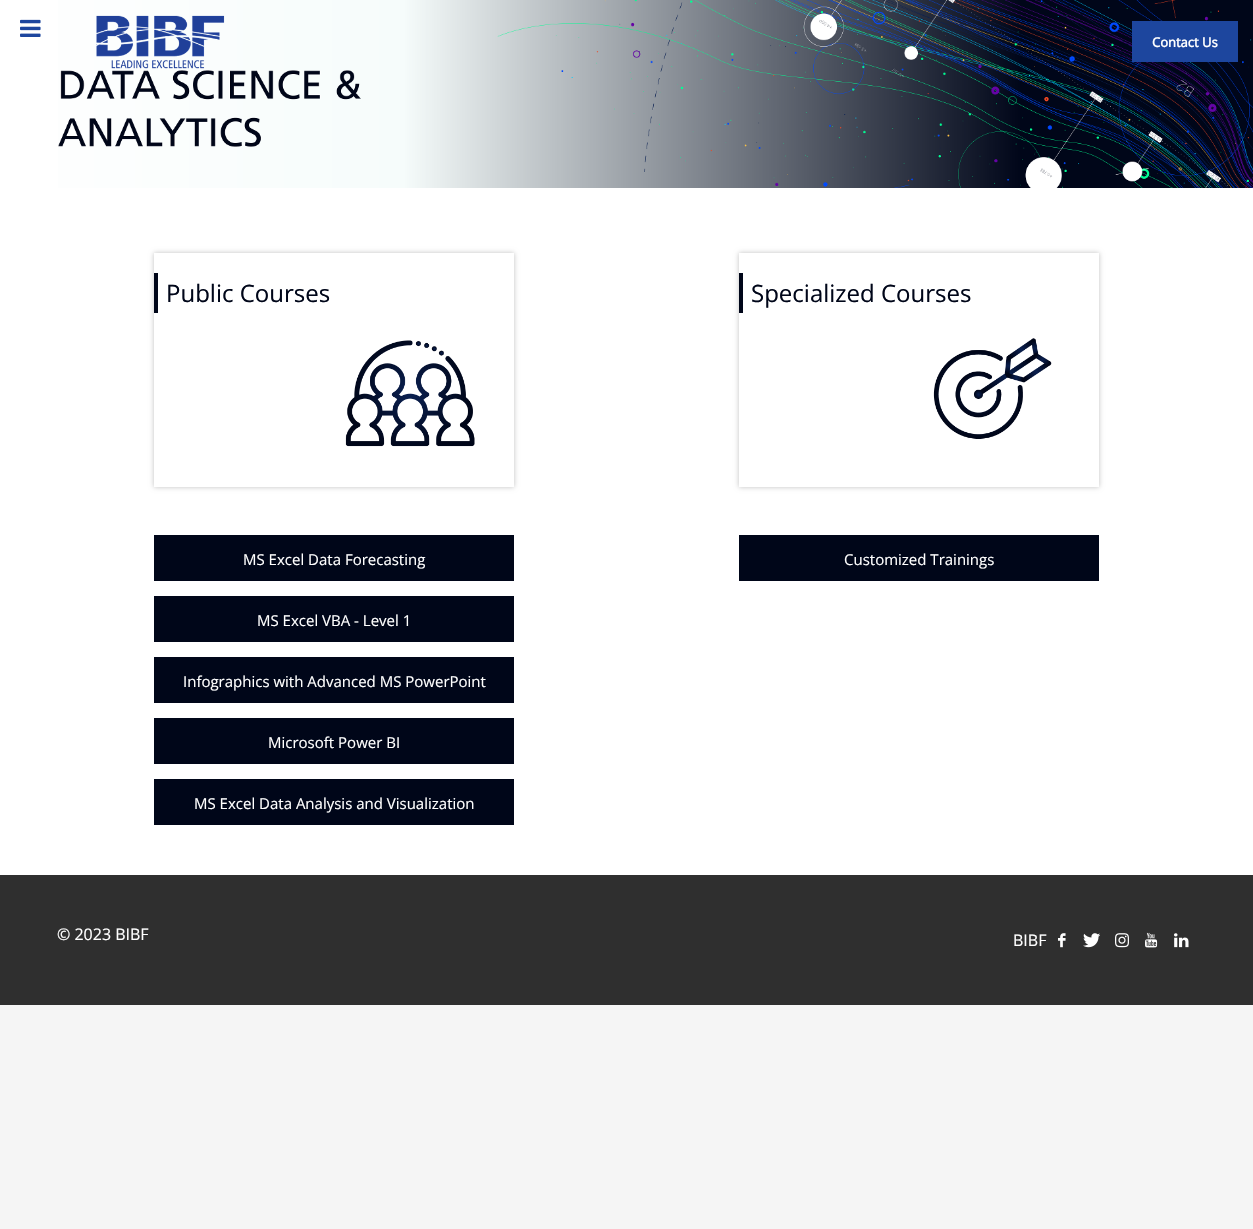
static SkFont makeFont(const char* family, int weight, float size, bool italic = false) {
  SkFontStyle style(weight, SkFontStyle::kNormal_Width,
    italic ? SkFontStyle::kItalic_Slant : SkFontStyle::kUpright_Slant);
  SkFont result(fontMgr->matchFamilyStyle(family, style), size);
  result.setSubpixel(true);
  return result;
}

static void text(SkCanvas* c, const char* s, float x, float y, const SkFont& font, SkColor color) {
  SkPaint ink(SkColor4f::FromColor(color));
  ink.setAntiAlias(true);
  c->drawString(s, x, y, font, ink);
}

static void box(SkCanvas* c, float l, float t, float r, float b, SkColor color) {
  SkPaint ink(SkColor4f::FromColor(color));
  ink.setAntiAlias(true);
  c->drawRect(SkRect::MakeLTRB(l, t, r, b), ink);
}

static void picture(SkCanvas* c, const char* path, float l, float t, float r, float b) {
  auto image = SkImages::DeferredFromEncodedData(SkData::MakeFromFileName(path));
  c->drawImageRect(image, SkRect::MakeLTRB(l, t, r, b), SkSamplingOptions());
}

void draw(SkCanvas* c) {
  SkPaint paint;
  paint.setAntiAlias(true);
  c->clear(0xfff5f5f5);
  box(c, 0, 0, 1253, 875, 0xffffffff);
  picture(c, "img_01.png", 20, 19, 41, 37);
  picture(c, "img_03.png", 58, 0, 1253, 188);
  picture(c, "img_02.png", 96, 15, 225, 69);
  box(c, 1132, 21, 1238, 62, 0xff1d469e);
  SkFont face1 = makeFont("Open Sans", 700, 13);
  text(c, "Contact Us", 1152, 47, face1, 0xffffffff);
  c->save();
  c->clipPath(SkPathBuilder(SkPathFillType::kEvenOdd).moveTo(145, 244).lineTo(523, 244).lineTo(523, 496).lineTo(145, 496).close().moveTo(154, 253).lineTo(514, 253).lineTo(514, 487).lineTo(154, 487).close().detach(), true);
  paint.setColor(0xffc0c0c0);
  paint.setMaskFilter(SkMaskFilter::MakeBlur(kNormal_SkBlurStyle, 2.5f));
  c->drawRect(SkRect::MakeLTRB(154, 253, 514, 487), paint);
  paint.setMaskFilter(nullptr);
  c->restore();
  box(c, 154, 273, 158, 313, 0xff000619);
  SkFont face2 = makeFont("Open Sans", 400, 24);
  text(c, "Public Courses", 166, 302, face2, 0xff000619);
  picture(c, "img_04.png", 345, 340, 475, 447);
  box(c, 154, 535, 514, 581, 0xff000619);
  SkFont face3 = makeFont("Open Sans", 400, 15);
  text(c, "MS Excel Data Forecasting", 243, 565, face3, 0xffffffff);
  box(c, 154, 596, 514, 642, 0xff000619);
  text(c, "MS Excel VBA - Level 1", 257, 626, face3, 0xffffffff);
  box(c, 154, 657, 514, 703, 0xff000619);
  text(c, "Infographics with Advanced MS PowerPoint", 183, 687, face3, 0xffffffff);
  box(c, 154, 718, 514, 764, 0xff000619);
  text(c, "Microsoft Power BI", 268, 748, face3, 0xffffffff);
  box(c, 154, 779, 514, 825, 0xff000619);
  text(c, "MS Excel Data Analysis and Visualization", 194, 809, face3, 0xffffffff);
  c->save();
  c->clipPath(SkPathBuilder(SkPathFillType::kEvenOdd).moveTo(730, 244).lineTo(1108, 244).lineTo(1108, 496).lineTo(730, 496).close().moveTo(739, 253).lineTo(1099, 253).lineTo(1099, 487).lineTo(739, 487).close().detach(), true);
  paint.setMaskFilter(SkMaskFilter::MakeBlur(kNormal_SkBlurStyle, 2.5f));
  c->drawRect(SkRect::MakeLTRB(739, 253, 1099, 487), paint);
  paint.setMaskFilter(nullptr);
  c->restore();
  box(c, 739, 273, 743, 313, 0xff000619);
  text(c, "Specialized Courses", 751, 302, face2, 0xff000619);
  picture(c, "img_05.png", 933, 338, 1052, 439);
  box(c, 739, 535, 1099, 581, 0xff000619);
  text(c, "Customized Trainings", 844, 565, face3, 0xffffffff);
  box(c, 0, 875, 1253, 1005, 0xff2f2f2f);
  SkFont face4 = makeFont("Open Sans", 400, 16);
  text(c, "© 2023 BIBF", 57, 940, face4, 0xffffffff);
  text(c, "BIBF", 1013, 946, face4, 0xffffffff);
  picture(c, "img_06.png", 1058, 933, 1066, 948);
  picture(c, "img_07.png", 1083, 933, 1100, 948);
  picture(c, "img_08.png", 1115, 933, 1129, 948);
  picture(c, "img_09.png", 1145, 932, 1158, 948);
  picture(c, "img_10.png", 1174, 933, 1189, 948);
}
